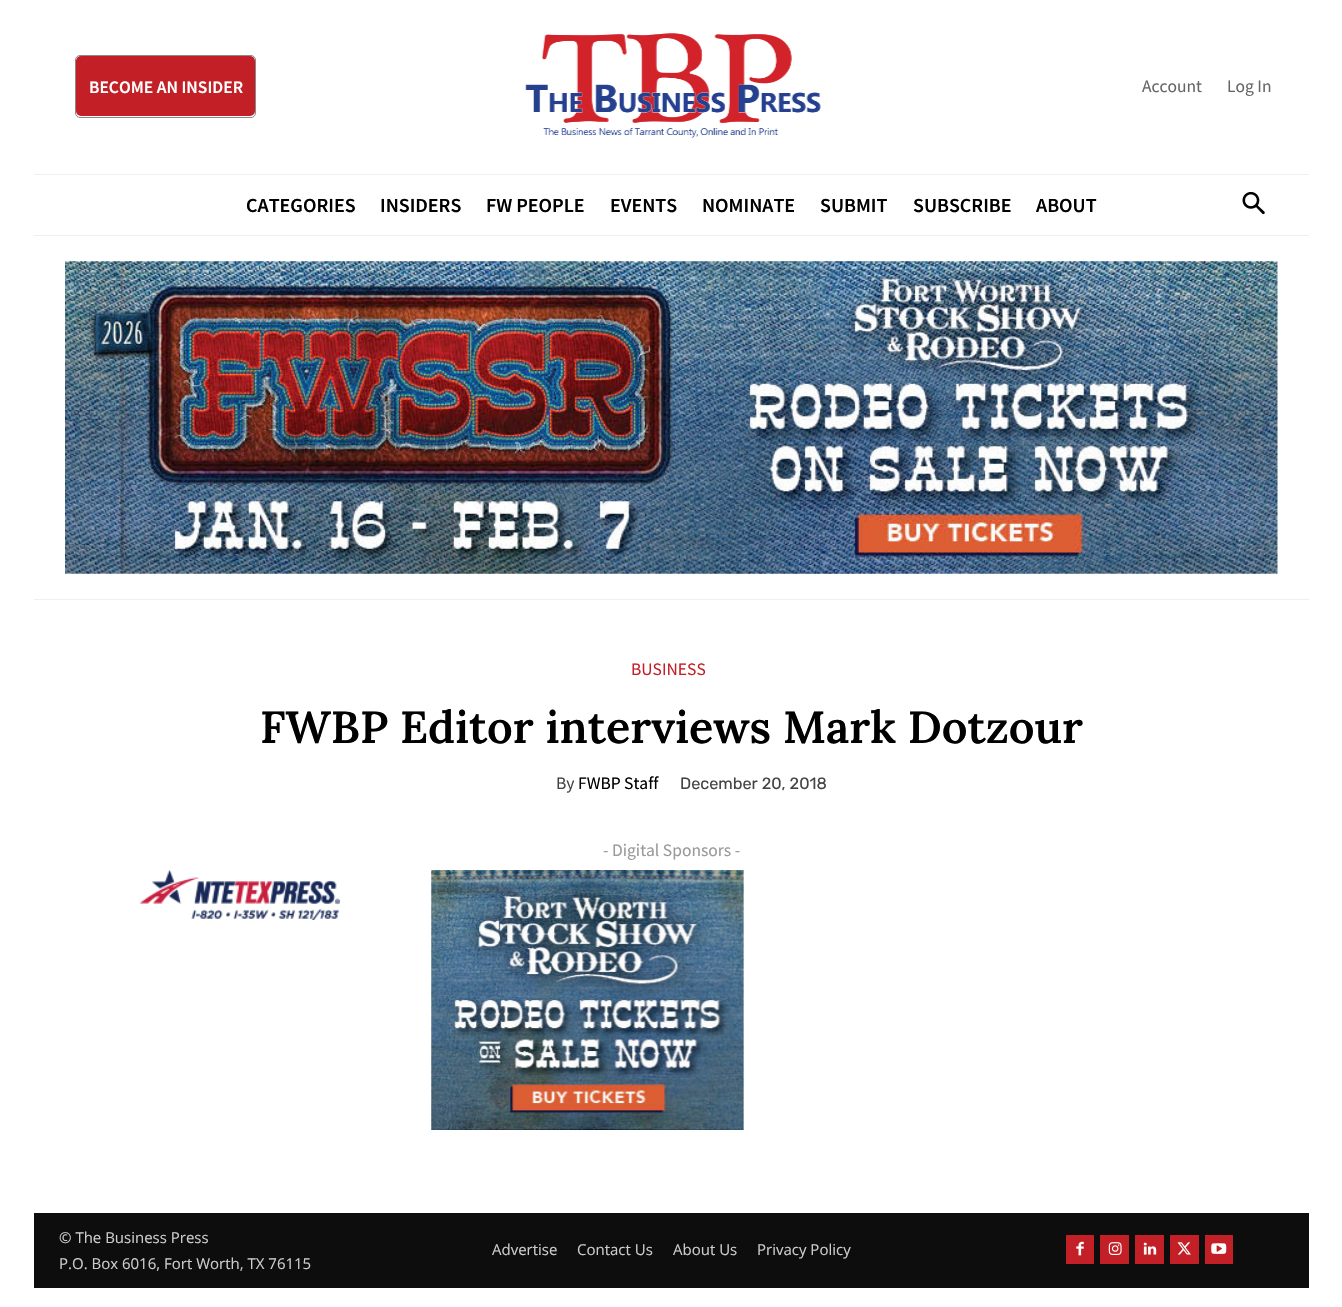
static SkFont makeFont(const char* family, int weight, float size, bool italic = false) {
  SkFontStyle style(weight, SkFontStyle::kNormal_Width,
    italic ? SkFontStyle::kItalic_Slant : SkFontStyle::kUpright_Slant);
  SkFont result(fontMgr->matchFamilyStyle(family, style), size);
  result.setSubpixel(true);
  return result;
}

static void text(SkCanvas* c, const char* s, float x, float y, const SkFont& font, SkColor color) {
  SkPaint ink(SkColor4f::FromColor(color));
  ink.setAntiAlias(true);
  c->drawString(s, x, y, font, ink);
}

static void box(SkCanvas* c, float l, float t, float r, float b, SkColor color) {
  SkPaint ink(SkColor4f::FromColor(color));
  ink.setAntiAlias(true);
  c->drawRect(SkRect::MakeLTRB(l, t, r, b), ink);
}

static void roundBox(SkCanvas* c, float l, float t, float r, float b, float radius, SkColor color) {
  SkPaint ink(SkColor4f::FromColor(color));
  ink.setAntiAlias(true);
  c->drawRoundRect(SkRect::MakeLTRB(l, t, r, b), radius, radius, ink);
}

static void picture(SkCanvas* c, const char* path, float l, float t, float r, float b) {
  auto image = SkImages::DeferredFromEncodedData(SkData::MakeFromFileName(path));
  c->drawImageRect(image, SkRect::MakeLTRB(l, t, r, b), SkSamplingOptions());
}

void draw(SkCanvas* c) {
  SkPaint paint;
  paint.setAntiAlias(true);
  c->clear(0xffffffff);
  paint.setStyle(SkPaint::kStroke_Style);
  paint.setStrokeWidth(1);
  paint.setColor(0xff888888);
  c->drawRoundRect(SkRect::MakeLTRB(75.5f, 55.5f, 255.5f, 117.5f), 4.5f, 4.5f, paint);
  roundBox(c, 76, 56, 255, 116, 5, 0xffc22026);
  SkFont face1 = makeFont("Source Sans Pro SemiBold", 600, 17.5f);
  text(c, "BECOME AN INSIDER", 89, 93, face1, 0xffffffff);
  picture(c, "img_01.png", 525, 33, 821, 138);
  SkFont face2 = makeFont("Source Sans Pro", 400, 17.5f);
  text(c, "Account", 1142, 92, face2, 0xff666666);
  text(c, "Log In", 1227, 92, face2, 0xff666666);
  box(c, 34, 599, 1309, 600, 0xffefefef);
  box(c, 34, 174, 1309, 175, 0xffefefef);
  box(c, 34, 235, 1309, 236, 0xffefefef);
  SkFont face3 = makeFont("Source Sans Pro SemiBold", 600, 20);
  text(c, "CATEGORIES", 246, 212, face3, 0xff000000);
  text(c, "INSIDERS", 380, 212, face3, 0xff000000);
  text(c, "FW PEOPLE", 486, 212, face3, 0xff000000);
  text(c, "EVENTS", 610, 212, face3, 0xff000000);
  text(c, "NOMINATE", 702, 212, face3, 0xff000000);
  text(c, "SUBMIT", 820, 212, face3, 0xff000000);
  text(c, "SUBSCRIBE", 913, 212, face3, 0xff000000);
  text(c, "ABOUT", 1036, 212, face3, 0xff000000);
  picture(c, "img_02.png", 1242, 191, 1265, 215);
  picture(c, "img_03.png", 65, 261, 1278, 574);
  text(c, "BUSINESS", 631, 675, face2, 0xffc22026);
  SkFont face4 = makeFont("Lora", 600, 45);
  text(c, "FWBP Editor interviews Mark Dotzour", 260, 743, face4, 0xff000000);
  text(c, "By", 556, 789, face2, 0xff444444);
  text(c, "FWBP Staff", 578, 789, face2, 0xff000000);
  SkFont face5 = makeFont("Rubik", 400, 16.25f);
  text(c, "December 20, 2018", 680, 789, face5, 0xff444444);
  text(c, "- Digital Sponsors -", 603, 856, face2, 0xff999999);
  picture(c, "img_04.png", 140, 870, 340, 920);
  picture(c, "img_05.png", 431, 870, 744, 1130);
  box(c, 34, 1213, 1309, 1288, 0xff0d0d0d);
  SkFont face6 = makeFont("Open Sans", 400, 15);
  text(c, "© The Business Press", 59, 1243, face6, 0xffcccccc);
  text(c, "P.O. Box 6016, Fort Worth, TX 76115", 59, 1269, face6, 0xffcccccc);
  text(c, "Advertise", 492, 1255, face6, 0xffcccccc);
  text(c, "Contact Us", 577, 1255, face6, 0xffcccccc);
  text(c, "About Us", 673, 1255, face6, 0xffcccccc);
  text(c, "Privacy Policy", 757, 1255, face6, 0xffcccccc);
  box(c, 1066, 1235, 1094, 1264, 0xffc22026);
  picture(c, "img_06.png", 1076, 1241, 1084, 1256);
  box(c, 1100, 1235, 1129, 1264, 0xffc22026);
  picture(c, "img_07.png", 1108, 1242, 1122, 1255);
  box(c, 1135, 1235, 1164, 1264, 0xffc22026);
  picture(c, "img_08.png", 1143, 1242, 1157, 1255);
  box(c, 1170, 1235, 1199, 1264, 0xffc22026);
  picture(c, "img_09.png", 1177, 1242, 1191, 1255);
  box(c, 1205, 1235, 1233, 1264, 0xffc22026);
  picture(c, "img_10.png", 1211, 1243, 1227, 1254);
}
